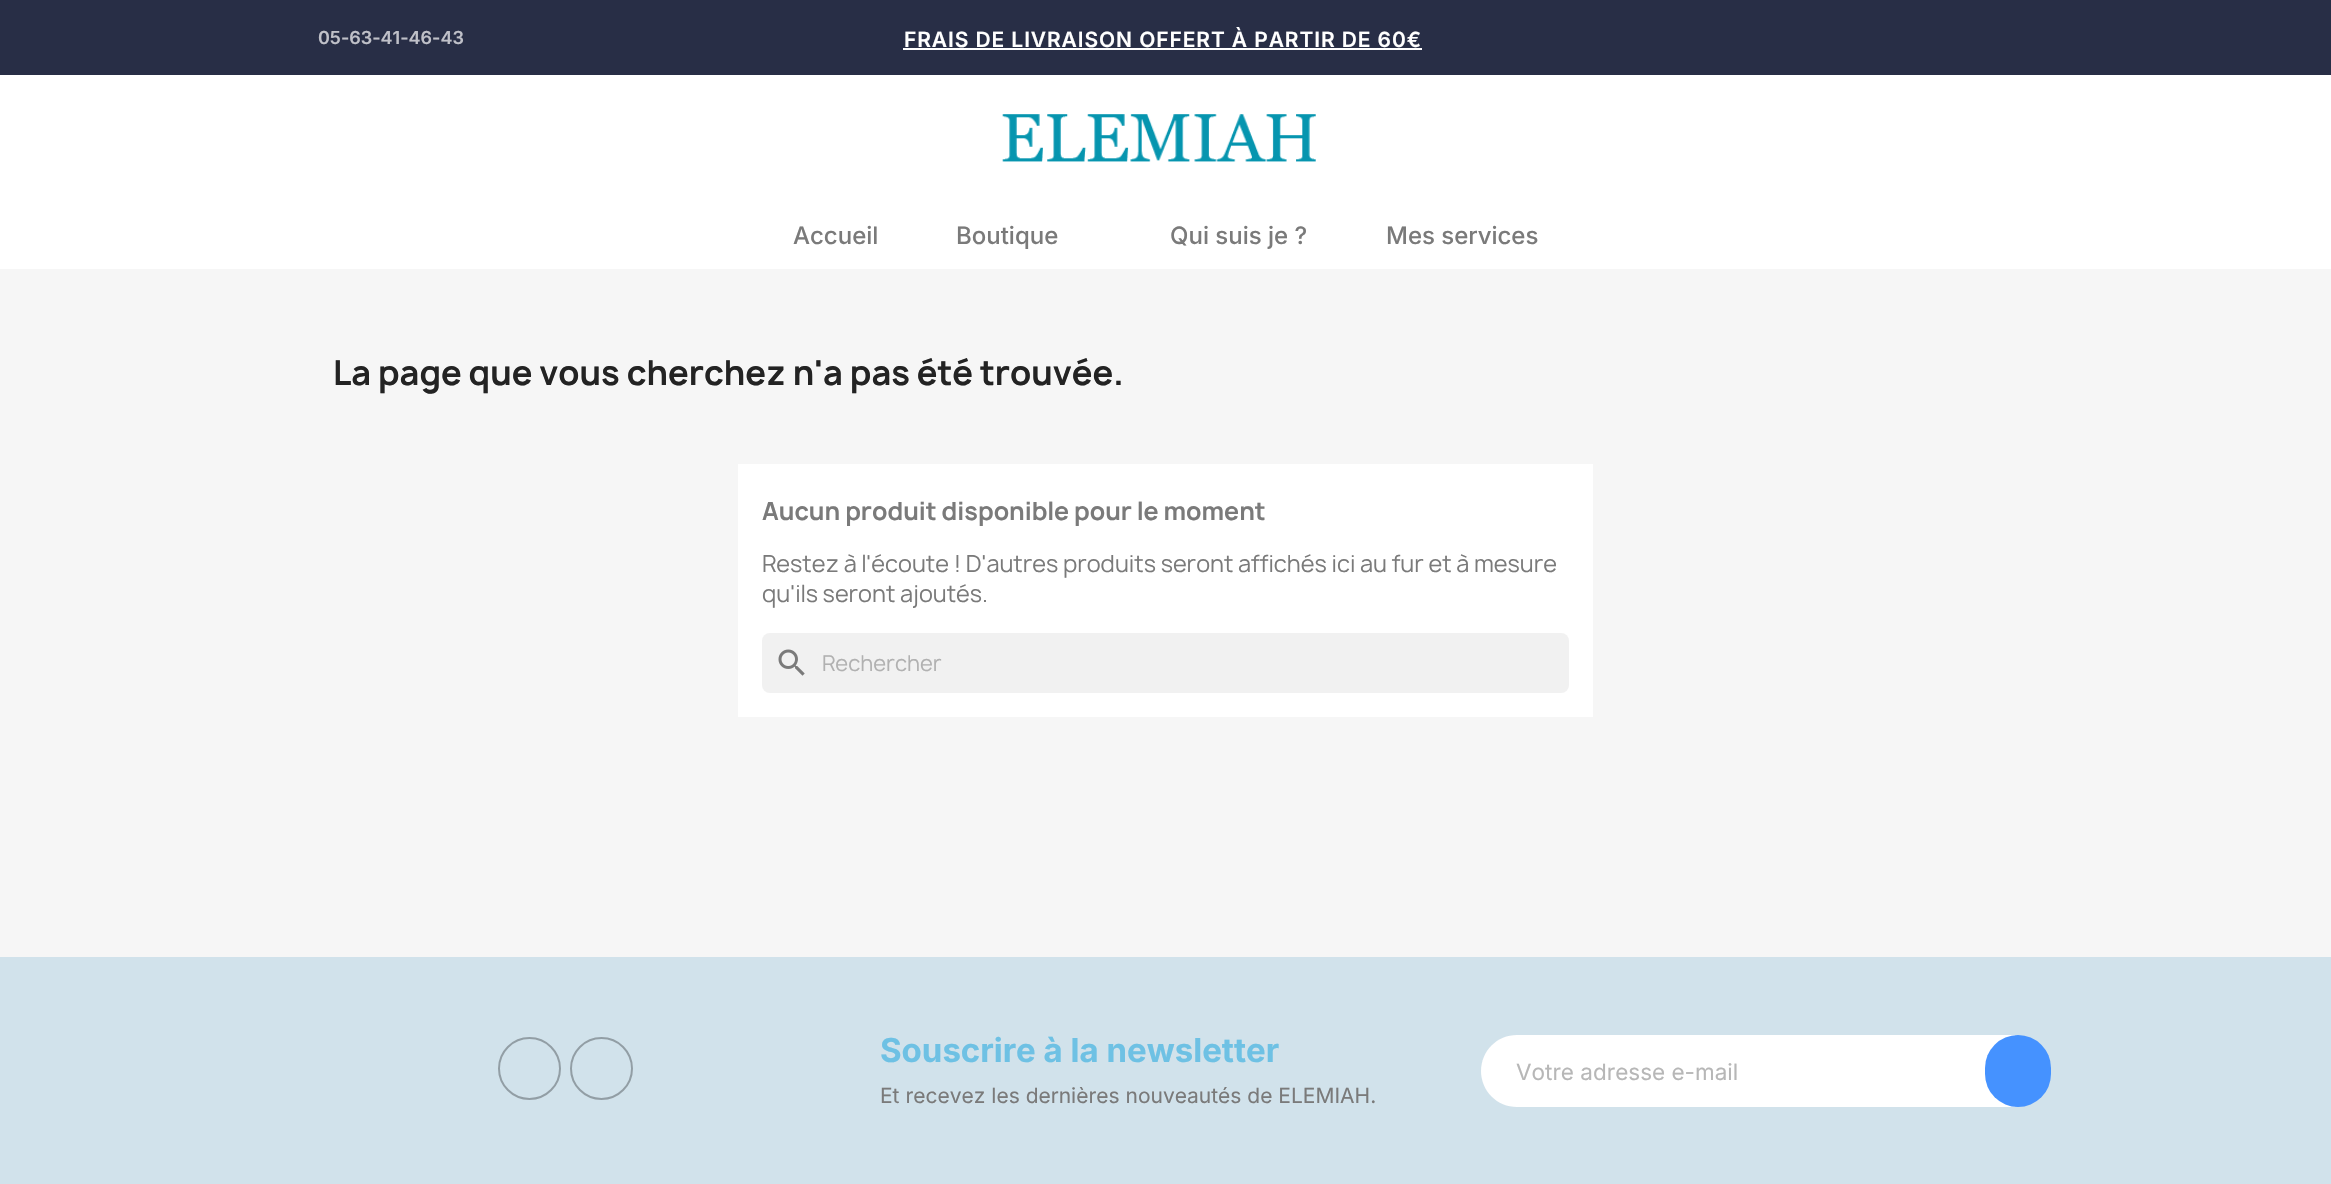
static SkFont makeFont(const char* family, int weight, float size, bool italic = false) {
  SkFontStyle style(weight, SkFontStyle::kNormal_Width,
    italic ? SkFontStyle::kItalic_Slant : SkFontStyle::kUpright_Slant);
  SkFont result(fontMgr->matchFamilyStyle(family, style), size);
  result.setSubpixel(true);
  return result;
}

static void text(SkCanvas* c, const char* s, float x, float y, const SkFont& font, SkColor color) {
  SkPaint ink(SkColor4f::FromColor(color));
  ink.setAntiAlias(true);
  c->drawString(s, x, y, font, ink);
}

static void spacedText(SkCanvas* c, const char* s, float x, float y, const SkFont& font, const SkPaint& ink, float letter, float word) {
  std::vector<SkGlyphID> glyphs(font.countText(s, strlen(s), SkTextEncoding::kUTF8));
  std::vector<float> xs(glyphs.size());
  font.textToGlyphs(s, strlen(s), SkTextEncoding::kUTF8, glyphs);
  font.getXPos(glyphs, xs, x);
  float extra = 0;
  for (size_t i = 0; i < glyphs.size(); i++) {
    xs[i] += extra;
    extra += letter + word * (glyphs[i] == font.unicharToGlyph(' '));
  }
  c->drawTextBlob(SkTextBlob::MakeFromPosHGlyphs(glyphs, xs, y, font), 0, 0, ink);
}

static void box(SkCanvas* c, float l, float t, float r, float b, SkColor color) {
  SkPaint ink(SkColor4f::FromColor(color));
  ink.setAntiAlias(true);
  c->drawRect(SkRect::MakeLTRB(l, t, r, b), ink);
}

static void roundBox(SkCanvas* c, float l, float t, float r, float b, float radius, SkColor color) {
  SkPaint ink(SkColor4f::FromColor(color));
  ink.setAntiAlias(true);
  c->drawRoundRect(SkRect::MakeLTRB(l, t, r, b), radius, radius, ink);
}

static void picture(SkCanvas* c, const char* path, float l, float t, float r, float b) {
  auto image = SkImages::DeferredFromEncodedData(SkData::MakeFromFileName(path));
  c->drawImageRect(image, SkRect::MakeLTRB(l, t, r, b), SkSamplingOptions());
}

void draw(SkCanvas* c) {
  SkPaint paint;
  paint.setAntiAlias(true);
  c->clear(0xffffffff);
  box(c, 0, 0, 2331, 75, 0xff282e46);
  SkFont face1 = makeFont("Inter", 600, 18);
  text(c, "05-63-41-46-43", 318, 44, face1, 0xffbfc0c8);
  SkFont face2 = makeFont("Inter", 600, 21);
  paint.setColor(0xffffffff);
  spacedText(c, "FRAIS DE LIVRAISON OFFERT À PARTIR DE 60€", 904, 47, face2, paint, 0.9f, 0);
  box(c, 903, 48, 1422, 50, 0xffffffff);
  picture(c, "img_01.png", 1002, 114, 1316, 162);
  SkFont face3 = makeFont("Inter", 500, 24);
  text(c, "Accueil", 793, 244, face3, 0xff7a7a7a);
  text(c, "Boutique", 956, 244, face3, 0xff7a7a7a);
  text(c, "Qui suis je ?", 1170, 244, face3, 0xff7a7a7a);
  text(c, "Mes services", 1386, 244, face3, 0xff7a7a7a);
  box(c, 0, 269, 2331, 957, 0xfff6f6f6);
  SkFont face4 = makeFont("Manrope", 700, 33);
  text(c, "La page que vous cherchez n'a pas été trouvée.", 333, 385, face4, 0xff232323);
  box(c, 738, 464, 1593, 717, 0xffffffff);
  SkFont face5 = makeFont("Manrope", 700, 24);
  text(c, "Aucun produit disponible pour le moment", 762, 520, face5, 0xff7a7a7a);
  SkFont face6 = makeFont("Manrope", 400, 22.5f);
  text(c, "Restez à l'écoute ! D'autres produits seront affichés ici au fur et à mesure", 762, 572, face6, 0xff7a7a7a);
  text(c, "qu'ils seront ajoutés.", 762, 602, face6, 0xff7a7a7a);
  roundBox(c, 762, 633, 1569, 693, 8, 0xfff1f1f1);
  picture(c, "img_02.png", 778, 649, 805, 676);
  SkFont face7 = makeFont("Manrope", 400, 21);
  text(c, "Rechercher", 822, 671, face7, 0xffb1b1b1);
  box(c, 0, 957, 2331, 1184, 0xffd1e2eb);
  paint.setStyle(SkPaint::kStroke_Style);
  paint.setStrokeWidth(2);
  paint.setColor(0xff929ea5);
  c->drawCircle(529.5f, 1068.5f, 30.5f, paint);
  c->drawCircle(601.5f, 1068.5f, 30.5f, paint);
  SkFont face8 = makeFont("Inter", 700, 33);
  text(c, "Souscrire à la newsletter", 880, 1062, face8, 0xff6ec1e4);
  SkFont face9 = makeFont("Inter", 400, 21);
  text(c, "Et recevez les dernières nouveautés de ELEMIAH.", 880, 1103, face9, 0xff7a7a7a);
  paint.setStyle(SkPaint::kFill_Style);
  paint.setColor(0xffffffff);
  c->drawPath(SkPathBuilder().moveTo(1517, 1035).lineTo(2015, 1035).lineTo(2015, 1107).lineTo(1517, 1107).cubicTo(1497, 1107, 1481, 1091, 1481, 1071).cubicTo(1481, 1051, 1497, 1035, 1517, 1035).close().detach(), paint);
  SkFont face10 = makeFont("Inter", 400, 22.5f);
  text(c, "Votre adresse e-mail", 1516, 1080, face10, 0xffb7b7b7);
  roundBox(c, 1985, 1035, 2051, 1107, 33, 0xff4592ff);
}
